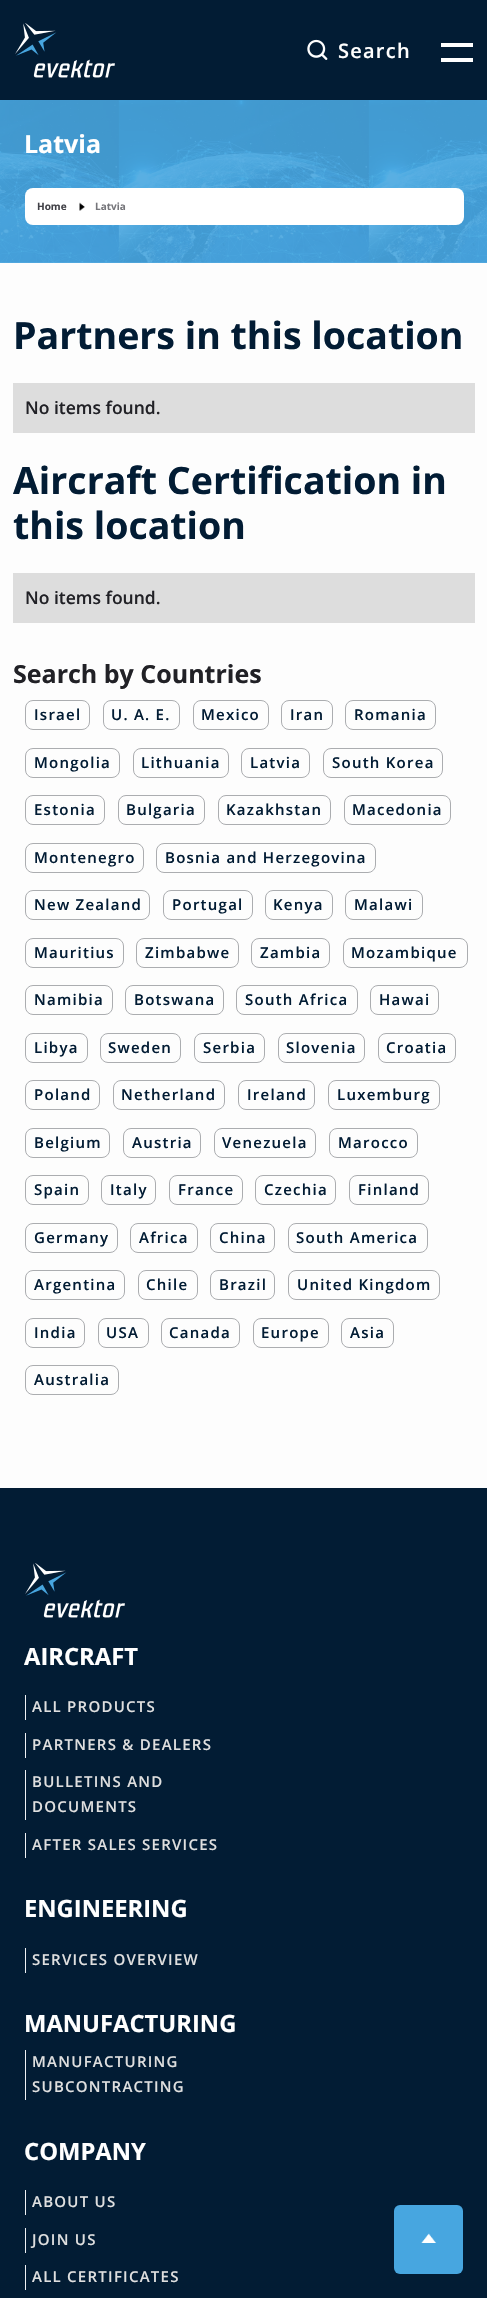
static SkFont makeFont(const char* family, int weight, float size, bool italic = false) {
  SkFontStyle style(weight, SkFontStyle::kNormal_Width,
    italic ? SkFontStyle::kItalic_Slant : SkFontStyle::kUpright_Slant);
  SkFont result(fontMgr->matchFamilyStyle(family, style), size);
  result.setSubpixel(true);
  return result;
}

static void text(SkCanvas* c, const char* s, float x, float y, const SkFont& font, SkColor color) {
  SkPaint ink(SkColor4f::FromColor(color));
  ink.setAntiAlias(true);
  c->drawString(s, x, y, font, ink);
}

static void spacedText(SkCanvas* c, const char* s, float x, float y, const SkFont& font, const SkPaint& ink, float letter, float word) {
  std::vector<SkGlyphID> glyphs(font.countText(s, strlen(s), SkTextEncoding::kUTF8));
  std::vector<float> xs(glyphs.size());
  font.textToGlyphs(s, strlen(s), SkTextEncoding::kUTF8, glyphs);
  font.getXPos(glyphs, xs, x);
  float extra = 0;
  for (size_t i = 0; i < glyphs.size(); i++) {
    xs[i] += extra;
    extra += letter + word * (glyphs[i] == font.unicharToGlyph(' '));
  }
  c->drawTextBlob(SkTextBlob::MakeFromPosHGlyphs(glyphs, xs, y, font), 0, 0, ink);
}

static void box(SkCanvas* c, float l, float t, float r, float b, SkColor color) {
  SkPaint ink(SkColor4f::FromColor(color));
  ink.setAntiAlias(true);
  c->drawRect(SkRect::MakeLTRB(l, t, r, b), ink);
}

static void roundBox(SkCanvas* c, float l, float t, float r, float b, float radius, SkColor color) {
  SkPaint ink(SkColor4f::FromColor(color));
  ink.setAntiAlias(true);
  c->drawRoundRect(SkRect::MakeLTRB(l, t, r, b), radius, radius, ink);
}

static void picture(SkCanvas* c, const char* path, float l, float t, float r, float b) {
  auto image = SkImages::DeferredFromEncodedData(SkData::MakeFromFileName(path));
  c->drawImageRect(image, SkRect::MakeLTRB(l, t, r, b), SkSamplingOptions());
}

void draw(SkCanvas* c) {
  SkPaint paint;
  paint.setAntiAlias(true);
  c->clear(0xff59afe3);
  box(c, 0, 0, 487, 100, 0xff021c34);
  picture(c, "img_01.png", 15, 23, 115, 78);
  picture(c, "img_02.png", 307, 39, 328, 60);
  SkFont face1 = makeFont("Open Sans", 600, 20);
  paint.setColor(0xffffffff);
  spacedText(c, "Search", 338, 58, face1, paint, 1.25f, 0);
  box(c, 441, 43, 473, 47, 0xffffffff);
  box(c, 441, 58, 473, 62, 0xffffffff);
  picture(c, "img_03.png", 0, 100, 487, 263);
  SkFont face2 = makeFont("Open Sans", 700, 25);
  text(c, "Latvia", 24, 153, face2, 0xffffffff);
  roundBox(c, 25, 188, 464, 225, 8, 0xffffffff);
  SkFont face3 = makeFont("Open Sans", 700, 10);
  text(c, "Home", 37, 210, face3, 0xff414147);
  picture(c, "img_04.png", 79, 202, 85, 211);
  text(c, "Latvia", 95, 210, face3, 0xff76767b);
  box(c, 0, 263, 487, 1488, 0xfffdfdfd);
  SkFont face4 = makeFont("Open Sans", 700, 37.5f);
  text(c, "Partners in this location", 13, 349, face4, 0xff021c34);
  box(c, 13, 383, 475, 433, 0xffdddddd);
  SkFont face5 = makeFont("Open Sans", 600, 17.5f);
  text(c, "No items found.", 25, 414, face5, 0xff212126);
  text(c, "Aircraft Certification in", 13, 494, face4, 0xff021c34);
  text(c, "this location", 13, 539, face4, 0xff021c34);
  box(c, 13, 573, 475, 623, 0xffdddddd);
  text(c, "No items found.", 25, 604, face5, 0xff212126);
  text(c, "Search by Countries", 13, 683, face2, 0xff212126);
  paint.setStyle(SkPaint::kStroke_Style);
  paint.setStrokeWidth(1);
  paint.setColor(0xffabadb0);
  c->drawRoundRect(SkRect::MakeLTRB(25.5f, 700.5f, 89.5f, 729.5f), 7.5f, 7.5f, paint);
  SkFont face6 = makeFont("Open Sans", 600, 15);
  paint.setStyle(SkPaint::kFill_Style);
  paint.setColor(0xff021c34);
  spacedText(c, "Israel", 34, 720, face6, paint, 1.25f, 0);
  paint.setStyle(SkPaint::kStroke_Style);
  paint.setColor(0xffabadb0);
  c->drawRoundRect(SkRect::MakeLTRB(103.5f, 700.5f, 179.5f, 729.5f), 7.5f, 7.5f, paint);
  paint.setStyle(SkPaint::kFill_Style);
  paint.setColor(0xff021c34);
  spacedText(c, "U. A. E.", 111, 720, face6, paint, 1.25f, 0);
  paint.setStyle(SkPaint::kStroke_Style);
  paint.setColor(0xffabadb0);
  c->drawRoundRect(SkRect::MakeLTRB(193.5f, 700.5f, 268.5f, 729.5f), 7.5f, 7.5f, paint);
  paint.setStyle(SkPaint::kFill_Style);
  paint.setColor(0xff021c34);
  spacedText(c, "Mexico", 201, 720, face6, paint, 1.25f, 0);
  paint.setStyle(SkPaint::kStroke_Style);
  paint.setColor(0xffabadb0);
  c->drawRoundRect(SkRect::MakeLTRB(281.5f, 700.5f, 332.5f, 729.5f), 7.5f, 7.5f, paint);
  paint.setStyle(SkPaint::kFill_Style);
  paint.setColor(0xff021c34);
  spacedText(c, "Iran", 290, 720, face6, paint, 1.25f, 0);
  paint.setStyle(SkPaint::kStroke_Style);
  paint.setColor(0xffabadb0);
  c->drawRoundRect(SkRect::MakeLTRB(345.5f, 700.5f, 435.5f, 729.5f), 7.5f, 7.5f, paint);
  paint.setStyle(SkPaint::kFill_Style);
  paint.setColor(0xff021c34);
  spacedText(c, "Romania", 354, 720, face6, paint, 1.25f, 0);
  paint.setStyle(SkPaint::kStroke_Style);
  paint.setColor(0xffabadb0);
  c->drawRoundRect(SkRect::MakeLTRB(25.5f, 748.5f, 119.5f, 777.5f), 7.5f, 7.5f, paint);
  paint.setStyle(SkPaint::kFill_Style);
  paint.setColor(0xff021c34);
  spacedText(c, "Mongolia", 34, 768, face6, paint, 1.25f, 0);
  paint.setStyle(SkPaint::kStroke_Style);
  paint.setColor(0xffabadb0);
  c->drawRoundRect(SkRect::MakeLTRB(133.5f, 748.5f, 228.5f, 777.5f), 7.5f, 7.5f, paint);
  paint.setStyle(SkPaint::kFill_Style);
  paint.setColor(0xff021c34);
  spacedText(c, "Lithuania", 141, 768, face6, paint, 1.25f, 0);
  paint.setStyle(SkPaint::kStroke_Style);
  paint.setColor(0xffabadb0);
  c->drawRoundRect(SkRect::MakeLTRB(241.5f, 748.5f, 309.5f, 777.5f), 7.5f, 7.5f, paint);
  paint.setStyle(SkPaint::kFill_Style);
  paint.setColor(0xff021c34);
  spacedText(c, "Latvia", 250, 768, face6, paint, 1.25f, 0);
  paint.setStyle(SkPaint::kStroke_Style);
  paint.setColor(0xffabadb0);
  c->drawRoundRect(SkRect::MakeLTRB(323.5f, 748.5f, 442.5f, 777.5f), 7.5f, 7.5f, paint);
  paint.setStyle(SkPaint::kFill_Style);
  paint.setColor(0xff021c34);
  spacedText(c, "South Korea", 332, 768, face6, paint, 1.25f, 0);
  paint.setStyle(SkPaint::kStroke_Style);
  paint.setColor(0xffabadb0);
  c->drawRoundRect(SkRect::MakeLTRB(25.5f, 795.5f, 104.5f, 824.5f), 7.5f, 7.5f, paint);
  paint.setStyle(SkPaint::kFill_Style);
  paint.setColor(0xff021c34);
  spacedText(c, "Estonia", 34, 815, face6, paint, 1.25f, 0);
  paint.setStyle(SkPaint::kStroke_Style);
  paint.setColor(0xffabadb0);
  c->drawRoundRect(SkRect::MakeLTRB(118.5f, 795.5f, 204.5f, 824.5f), 7.5f, 7.5f, paint);
  paint.setStyle(SkPaint::kFill_Style);
  paint.setColor(0xff021c34);
  spacedText(c, "Bulgaria", 126, 815, face6, paint, 1.25f, 0);
  paint.setStyle(SkPaint::kStroke_Style);
  paint.setColor(0xffabadb0);
  c->drawRoundRect(SkRect::MakeLTRB(218.5f, 795.5f, 330.5f, 824.5f), 7.5f, 7.5f, paint);
  paint.setStyle(SkPaint::kFill_Style);
  paint.setColor(0xff021c34);
  spacedText(c, "Kazakhstan", 226, 815, face6, paint, 1.25f, 0);
  paint.setStyle(SkPaint::kStroke_Style);
  paint.setColor(0xffabadb0);
  c->drawRoundRect(SkRect::MakeLTRB(344.5f, 795.5f, 450.5f, 824.5f), 7.5f, 7.5f, paint);
  paint.setStyle(SkPaint::kFill_Style);
  paint.setColor(0xff021c34);
  spacedText(c, "Macedonia", 352, 815, face6, paint, 1.25f, 0);
  paint.setStyle(SkPaint::kStroke_Style);
  paint.setColor(0xffabadb0);
  c->drawRoundRect(SkRect::MakeLTRB(25.5f, 843.5f, 143.5f, 872.5f), 7.5f, 7.5f, paint);
  paint.setStyle(SkPaint::kFill_Style);
  paint.setColor(0xff021c34);
  spacedText(c, "Montenegro", 34, 863, face6, paint, 1.25f, 0);
  paint.setStyle(SkPaint::kStroke_Style);
  paint.setColor(0xffabadb0);
  c->drawRoundRect(SkRect::MakeLTRB(156.5f, 843.5f, 375.5f, 872.5f), 7.5f, 7.5f, paint);
  paint.setStyle(SkPaint::kFill_Style);
  paint.setColor(0xff021c34);
  spacedText(c, "Bosnia and Herzegovina", 165, 863, face6, paint, 1.25f, 0);
  paint.setStyle(SkPaint::kStroke_Style);
  paint.setColor(0xffabadb0);
  c->drawRoundRect(SkRect::MakeLTRB(25.5f, 890.5f, 149.5f, 919.5f), 7.5f, 7.5f, paint);
  paint.setStyle(SkPaint::kFill_Style);
  paint.setColor(0xff021c34);
  spacedText(c, "New Zealand", 34, 910, face6, paint, 1.25f, 0);
  paint.setStyle(SkPaint::kStroke_Style);
  paint.setColor(0xffabadb0);
  c->drawRoundRect(SkRect::MakeLTRB(163.5f, 890.5f, 252.5f, 919.5f), 7.5f, 7.5f, paint);
  paint.setStyle(SkPaint::kFill_Style);
  paint.setColor(0xff021c34);
  spacedText(c, "Portugal", 172, 910, face6, paint, 1.25f, 0);
  paint.setStyle(SkPaint::kStroke_Style);
  paint.setColor(0xffabadb0);
  c->drawRoundRect(SkRect::MakeLTRB(265.5f, 890.5f, 332.5f, 919.5f), 7.5f, 7.5f, paint);
  paint.setStyle(SkPaint::kFill_Style);
  paint.setColor(0xff021c34);
  spacedText(c, "Kenya", 273, 910, face6, paint, 1.25f, 0);
  paint.setStyle(SkPaint::kStroke_Style);
  paint.setColor(0xffabadb0);
  c->drawRoundRect(SkRect::MakeLTRB(345.5f, 890.5f, 422.5f, 919.5f), 7.5f, 7.5f, paint);
  paint.setStyle(SkPaint::kFill_Style);
  paint.setColor(0xff021c34);
  spacedText(c, "Malawi", 354, 910, face6, paint, 1.25f, 0);
  paint.setStyle(SkPaint::kStroke_Style);
  paint.setColor(0xffabadb0);
  c->drawRoundRect(SkRect::MakeLTRB(25.5f, 938.5f, 123.5f, 967.5f), 7.5f, 7.5f, paint);
  paint.setStyle(SkPaint::kFill_Style);
  paint.setColor(0xff021c34);
  spacedText(c, "Mauritius", 34, 958, face6, paint, 1.25f, 0);
  paint.setStyle(SkPaint::kStroke_Style);
  paint.setColor(0xffabadb0);
  c->drawRoundRect(SkRect::MakeLTRB(136.5f, 938.5f, 238.5f, 967.5f), 7.5f, 7.5f, paint);
  paint.setStyle(SkPaint::kFill_Style);
  paint.setColor(0xff021c34);
  spacedText(c, "Zimbabwe", 145, 958, face6, paint, 1.25f, 0);
  paint.setStyle(SkPaint::kStroke_Style);
  paint.setColor(0xffabadb0);
  c->drawRoundRect(SkRect::MakeLTRB(251.5f, 938.5f, 329.5f, 967.5f), 7.5f, 7.5f, paint);
  paint.setStyle(SkPaint::kFill_Style);
  paint.setColor(0xff021c34);
  spacedText(c, "Zambia", 260, 958, face6, paint, 1.25f, 0);
  paint.setStyle(SkPaint::kStroke_Style);
  paint.setColor(0xffabadb0);
  c->drawRoundRect(SkRect::MakeLTRB(343.5f, 938.5f, 467.5f, 967.5f), 7.5f, 7.5f, paint);
  paint.setStyle(SkPaint::kFill_Style);
  paint.setColor(0xff021c34);
  spacedText(c, "Mozambique", 351, 958, face6, paint, 1.25f, 0);
  paint.setStyle(SkPaint::kStroke_Style);
  paint.setColor(0xffabadb0);
  c->drawRoundRect(SkRect::MakeLTRB(25.5f, 985.5f, 112.5f, 1014.5f), 7.5f, 7.5f, paint);
  paint.setStyle(SkPaint::kFill_Style);
  paint.setColor(0xff021c34);
  spacedText(c, "Namibia", 34, 1005, face6, paint, 1.25f, 0);
  paint.setStyle(SkPaint::kStroke_Style);
  paint.setColor(0xffabadb0);
  c->drawRoundRect(SkRect::MakeLTRB(125.5f, 985.5f, 223.5f, 1014.5f), 7.5f, 7.5f, paint);
  paint.setStyle(SkPaint::kFill_Style);
  paint.setColor(0xff021c34);
  spacedText(c, "Botswana", 134, 1005, face6, paint, 1.25f, 0);
  paint.setStyle(SkPaint::kStroke_Style);
  paint.setColor(0xffabadb0);
  c->drawRoundRect(SkRect::MakeLTRB(236.5f, 985.5f, 357.5f, 1014.5f), 7.5f, 7.5f, paint);
  paint.setStyle(SkPaint::kFill_Style);
  paint.setColor(0xff021c34);
  spacedText(c, "South Africa", 245, 1005, face6, paint, 1.25f, 0);
  paint.setStyle(SkPaint::kStroke_Style);
  paint.setColor(0xffabadb0);
  c->drawRoundRect(SkRect::MakeLTRB(370.5f, 985.5f, 438.5f, 1014.5f), 7.5f, 7.5f, paint);
  paint.setStyle(SkPaint::kFill_Style);
  paint.setColor(0xff021c34);
  spacedText(c, "Hawai", 379, 1005, face6, paint, 1.25f, 0);
  paint.setStyle(SkPaint::kStroke_Style);
  paint.setColor(0xffabadb0);
  c->drawRoundRect(SkRect::MakeLTRB(25.5f, 1033.5f, 87.5f, 1062.5f), 7.5f, 7.5f, paint);
  paint.setStyle(SkPaint::kFill_Style);
  paint.setColor(0xff021c34);
  spacedText(c, "Libya", 34, 1053, face6, paint, 1.25f, 0);
  paint.setStyle(SkPaint::kStroke_Style);
  paint.setColor(0xffabadb0);
  c->drawRoundRect(SkRect::MakeLTRB(100.5f, 1033.5f, 180.5f, 1062.5f), 7.5f, 7.5f, paint);
  paint.setStyle(SkPaint::kFill_Style);
  paint.setColor(0xff021c34);
  spacedText(c, "Sweden", 108, 1053, face6, paint, 1.25f, 0);
  paint.setStyle(SkPaint::kStroke_Style);
  paint.setColor(0xffabadb0);
  c->drawRoundRect(SkRect::MakeLTRB(194.5f, 1033.5f, 264.5f, 1062.5f), 7.5f, 7.5f, paint);
  paint.setStyle(SkPaint::kFill_Style);
  paint.setColor(0xff021c34);
  spacedText(c, "Serbia", 203, 1053, face6, paint, 1.25f, 0);
  paint.setStyle(SkPaint::kStroke_Style);
  paint.setColor(0xffabadb0);
  c->drawRoundRect(SkRect::MakeLTRB(278.5f, 1033.5f, 364.5f, 1062.5f), 7.5f, 7.5f, paint);
  paint.setStyle(SkPaint::kFill_Style);
  paint.setColor(0xff021c34);
  spacedText(c, "Slovenia", 286, 1053, face6, paint, 1.25f, 0);
  paint.setStyle(SkPaint::kStroke_Style);
  paint.setColor(0xffabadb0);
  c->drawRoundRect(SkRect::MakeLTRB(378.5f, 1033.5f, 455.5f, 1062.5f), 7.5f, 7.5f, paint);
  paint.setStyle(SkPaint::kFill_Style);
  paint.setColor(0xff021c34);
  spacedText(c, "Croatia", 386, 1053, face6, paint, 1.25f, 0);
  paint.setStyle(SkPaint::kStroke_Style);
  paint.setColor(0xffabadb0);
  c->drawRoundRect(SkRect::MakeLTRB(25.5f, 1080.5f, 99.5f, 1109.5f), 7.5f, 7.5f, paint);
  paint.setStyle(SkPaint::kFill_Style);
  paint.setColor(0xff021c34);
  spacedText(c, "Poland", 34, 1100, face6, paint, 1.25f, 0);
  paint.setStyle(SkPaint::kStroke_Style);
  paint.setColor(0xffabadb0);
  c->drawRoundRect(SkRect::MakeLTRB(113.5f, 1080.5f, 224.5f, 1109.5f), 7.5f, 7.5f, paint);
  paint.setStyle(SkPaint::kFill_Style);
  paint.setColor(0xff021c34);
  spacedText(c, "Netherland", 121, 1100, face6, paint, 1.25f, 0);
  paint.setStyle(SkPaint::kStroke_Style);
  paint.setColor(0xffabadb0);
  c->drawRoundRect(SkRect::MakeLTRB(238.5f, 1080.5f, 314.5f, 1109.5f), 7.5f, 7.5f, paint);
  paint.setStyle(SkPaint::kFill_Style);
  paint.setColor(0xff021c34);
  spacedText(c, "Ireland", 247, 1100, face6, paint, 1.25f, 0);
  paint.setStyle(SkPaint::kStroke_Style);
  paint.setColor(0xffabadb0);
  c->drawRoundRect(SkRect::MakeLTRB(328.5f, 1080.5f, 439.5f, 1109.5f), 7.5f, 7.5f, paint);
  paint.setStyle(SkPaint::kFill_Style);
  paint.setColor(0xff021c34);
  spacedText(c, "Luxemburg", 337, 1100, face6, paint, 1.25f, 0);
  paint.setStyle(SkPaint::kStroke_Style);
  paint.setColor(0xffabadb0);
  c->drawRoundRect(SkRect::MakeLTRB(25.5f, 1128.5f, 109.5f, 1157.5f), 7.5f, 7.5f, paint);
  paint.setStyle(SkPaint::kFill_Style);
  paint.setColor(0xff021c34);
  spacedText(c, "Belgium", 34, 1148, face6, paint, 1.25f, 0);
  paint.setStyle(SkPaint::kStroke_Style);
  paint.setColor(0xffabadb0);
  c->drawRoundRect(SkRect::MakeLTRB(123.5f, 1128.5f, 200.5f, 1157.5f), 7.5f, 7.5f, paint);
  paint.setStyle(SkPaint::kFill_Style);
  paint.setColor(0xff021c34);
  spacedText(c, "Austria", 132, 1148, face6, paint, 1.25f, 0);
  paint.setStyle(SkPaint::kStroke_Style);
  paint.setColor(0xffabadb0);
  c->drawRoundRect(SkRect::MakeLTRB(214.5f, 1128.5f, 315.5f, 1157.5f), 7.5f, 7.5f, paint);
  paint.setStyle(SkPaint::kFill_Style);
  paint.setColor(0xff021c34);
  spacedText(c, "Venezuela", 222, 1148, face6, paint, 1.25f, 0);
  paint.setStyle(SkPaint::kStroke_Style);
  paint.setColor(0xffabadb0);
  c->drawRoundRect(SkRect::MakeLTRB(329.5f, 1128.5f, 417.5f, 1157.5f), 7.5f, 7.5f, paint);
  paint.setStyle(SkPaint::kFill_Style);
  paint.setColor(0xff021c34);
  spacedText(c, "Marocco", 338, 1148, face6, paint, 1.25f, 0);
  paint.setStyle(SkPaint::kStroke_Style);
  paint.setColor(0xffabadb0);
  c->drawRoundRect(SkRect::MakeLTRB(25.5f, 1175.5f, 88.5f, 1204.5f), 7.5f, 7.5f, paint);
  paint.setStyle(SkPaint::kFill_Style);
  paint.setColor(0xff021c34);
  spacedText(c, "Spain", 34, 1195, face6, paint, 1.25f, 0);
  paint.setStyle(SkPaint::kStroke_Style);
  paint.setColor(0xffabadb0);
  c->drawRoundRect(SkRect::MakeLTRB(101.5f, 1175.5f, 155.5f, 1204.5f), 7.5f, 7.5f, paint);
  paint.setStyle(SkPaint::kFill_Style);
  paint.setColor(0xff021c34);
  spacedText(c, "Italy", 110, 1195, face6, paint, 1.25f, 0);
  paint.setStyle(SkPaint::kStroke_Style);
  paint.setColor(0xffabadb0);
  c->drawRoundRect(SkRect::MakeLTRB(169.5f, 1175.5f, 242.5f, 1204.5f), 7.5f, 7.5f, paint);
  paint.setStyle(SkPaint::kFill_Style);
  paint.setColor(0xff021c34);
  spacedText(c, "France", 178, 1195, face6, paint, 1.25f, 0);
  paint.setStyle(SkPaint::kStroke_Style);
  paint.setColor(0xffabadb0);
  c->drawRoundRect(SkRect::MakeLTRB(255.5f, 1175.5f, 335.5f, 1204.5f), 7.5f, 7.5f, paint);
  paint.setStyle(SkPaint::kFill_Style);
  paint.setColor(0xff021c34);
  spacedText(c, "Czechia", 264, 1195, face6, paint, 1.25f, 0);
  paint.setStyle(SkPaint::kStroke_Style);
  paint.setColor(0xffabadb0);
  c->drawRoundRect(SkRect::MakeLTRB(349.5f, 1175.5f, 428.5f, 1204.5f), 7.5f, 7.5f, paint);
  paint.setStyle(SkPaint::kFill_Style);
  paint.setColor(0xff021c34);
  spacedText(c, "Finland", 358, 1195, face6, paint, 1.25f, 0);
  paint.setStyle(SkPaint::kStroke_Style);
  paint.setColor(0xffabadb0);
  c->drawRoundRect(SkRect::MakeLTRB(25.5f, 1223.5f, 117.5f, 1252.5f), 7.5f, 7.5f, paint);
  paint.setStyle(SkPaint::kFill_Style);
  paint.setColor(0xff021c34);
  spacedText(c, "Germany", 34, 1243, face6, paint, 1.25f, 0);
  paint.setStyle(SkPaint::kStroke_Style);
  paint.setColor(0xffabadb0);
  c->drawRoundRect(SkRect::MakeLTRB(130.5f, 1223.5f, 197.5f, 1252.5f), 7.5f, 7.5f, paint);
  paint.setStyle(SkPaint::kFill_Style);
  paint.setColor(0xff021c34);
  spacedText(c, "Africa", 139, 1243, face6, paint, 1.25f, 0);
  paint.setStyle(SkPaint::kStroke_Style);
  paint.setColor(0xffabadb0);
  c->drawRoundRect(SkRect::MakeLTRB(210.5f, 1223.5f, 274.5f, 1252.5f), 7.5f, 7.5f, paint);
  paint.setStyle(SkPaint::kFill_Style);
  paint.setColor(0xff021c34);
  spacedText(c, "China", 219, 1243, face6, paint, 1.25f, 0);
  paint.setStyle(SkPaint::kStroke_Style);
  paint.setColor(0xffabadb0);
  c->drawRoundRect(SkRect::MakeLTRB(288.5f, 1223.5f, 427.5f, 1252.5f), 7.5f, 7.5f, paint);
  paint.setStyle(SkPaint::kFill_Style);
  paint.setColor(0xff021c34);
  spacedText(c, "South America", 296, 1243, face6, paint, 1.25f, 0);
  paint.setStyle(SkPaint::kStroke_Style);
  paint.setColor(0xffabadb0);
  c->drawRoundRect(SkRect::MakeLTRB(25.5f, 1270.5f, 124.5f, 1299.5f), 7.5f, 7.5f, paint);
  paint.setStyle(SkPaint::kFill_Style);
  paint.setColor(0xff021c34);
  spacedText(c, "Argentina", 34, 1290, face6, paint, 1.25f, 0);
  paint.setStyle(SkPaint::kStroke_Style);
  paint.setColor(0xffabadb0);
  c->drawRoundRect(SkRect::MakeLTRB(138.5f, 1270.5f, 197.5f, 1299.5f), 7.5f, 7.5f, paint);
  paint.setStyle(SkPaint::kFill_Style);
  paint.setColor(0xff021c34);
  spacedText(c, "Chile", 146, 1290, face6, paint, 1.25f, 0);
  paint.setStyle(SkPaint::kStroke_Style);
  paint.setColor(0xffabadb0);
  c->drawRoundRect(SkRect::MakeLTRB(210.5f, 1270.5f, 274.5f, 1299.5f), 7.5f, 7.5f, paint);
  paint.setStyle(SkPaint::kFill_Style);
  paint.setColor(0xff021c34);
  spacedText(c, "Brazil", 219, 1290, face6, paint, 1.25f, 0);
  paint.setStyle(SkPaint::kStroke_Style);
  paint.setColor(0xffabadb0);
  c->drawRoundRect(SkRect::MakeLTRB(288.5f, 1270.5f, 439.5f, 1299.5f), 7.5f, 7.5f, paint);
  paint.setStyle(SkPaint::kFill_Style);
  paint.setColor(0xff021c34);
  spacedText(c, "United Kingdom", 297, 1290, face6, paint, 1.25f, 0);
  paint.setStyle(SkPaint::kStroke_Style);
  paint.setColor(0xffabadb0);
  c->drawRoundRect(SkRect::MakeLTRB(25.5f, 1318.5f, 84.5f, 1347.5f), 7.5f, 7.5f, paint);
  paint.setStyle(SkPaint::kFill_Style);
  paint.setColor(0xff021c34);
  spacedText(c, "India", 34, 1338, face6, paint, 1.25f, 0);
  paint.setStyle(SkPaint::kStroke_Style);
  paint.setColor(0xffabadb0);
  c->drawRoundRect(SkRect::MakeLTRB(98.5f, 1318.5f, 148.5f, 1347.5f), 7.5f, 7.5f, paint);
  paint.setStyle(SkPaint::kFill_Style);
  paint.setColor(0xff021c34);
  spacedText(c, "USA", 106, 1338, face6, paint, 1.25f, 0);
  paint.setStyle(SkPaint::kStroke_Style);
  paint.setColor(0xffabadb0);
  c->drawRoundRect(SkRect::MakeLTRB(161.5f, 1318.5f, 239.5f, 1347.5f), 7.5f, 7.5f, paint);
  paint.setStyle(SkPaint::kFill_Style);
  paint.setColor(0xff021c34);
  spacedText(c, "Canada", 169, 1338, face6, paint, 1.25f, 0);
  paint.setStyle(SkPaint::kStroke_Style);
  paint.setColor(0xffabadb0);
  c->drawRoundRect(SkRect::MakeLTRB(253.5f, 1318.5f, 328.5f, 1347.5f), 7.5f, 7.5f, paint);
  paint.setStyle(SkPaint::kFill_Style);
  paint.setColor(0xff021c34);
  spacedText(c, "Europe", 261, 1338, face6, paint, 1.25f, 0);
  paint.setStyle(SkPaint::kStroke_Style);
  paint.setColor(0xffabadb0);
  c->drawRoundRect(SkRect::MakeLTRB(341.5f, 1318.5f, 393.5f, 1347.5f), 7.5f, 7.5f, paint);
  paint.setStyle(SkPaint::kFill_Style);
  paint.setColor(0xff021c34);
  spacedText(c, "Asia", 350, 1338, face6, paint, 1.25f, 0);
  paint.setStyle(SkPaint::kStroke_Style);
  paint.setColor(0xffabadb0);
  c->drawRoundRect(SkRect::MakeLTRB(25.5f, 1365.5f, 118.5f, 1394.5f), 7.5f, 7.5f, paint);
  paint.setStyle(SkPaint::kFill_Style);
  paint.setColor(0xff021c34);
  spacedText(c, "Australia", 34, 1385, face6, paint, 1.25f, 0);
  box(c, 0, 1488, 487, 2298, 0xff021c34);
  picture(c, "img_01.png", 25, 1563, 125, 1618);
  SkFont face7 = makeFont("Open Sans", 700, 23.75f);
  text(c, "AIRCRAFT", 24, 1665, face7, 0xffffffff);
  box(c, 25, 1695, 26, 1720, 0xffeef0f4);
  paint.setColor(0xffdfdfdf);
  spacedText(c, "ALL PRODUCTS", 32, 1712, face6, paint, 1.25f, 0);
  box(c, 25, 1733, 26, 1758, 0xffeef0f4);
  spacedText(c, "PARTNERS & DEALERS", 32, 1750, face6, paint, 1.25f, 0);
  box(c, 25, 1770, 26, 1820, 0xffeef0f4);
  spacedText(c, "BULLETINS AND", 32, 1787, face6, paint, 1.25f, 0);
  spacedText(c, "DOCUMENTS", 32, 1812, face6, paint, 1.25f, 0);
  box(c, 25, 1833, 26, 1858, 0xffeef0f4);
  spacedText(c, "AFTER SALES SERVICES", 32, 1850, face6, paint, 1.25f, 0);
  text(c, "ENGINEERING", 24, 1917, face7, 0xffffffff);
  box(c, 25, 1948, 26, 1973, 0xffeef0f4);
  spacedText(c, "SERVICES OVERVIEW", 32, 1965, face6, paint, 1.25f, 0);
  text(c, "MANUFACTURING", 24, 2032, face7, 0xffffffff);
  box(c, 25, 2050, 26, 2100, 0xffeef0f4);
  spacedText(c, "MANUFACTURING", 32, 2067, face6, paint, 1.25f, 0);
  spacedText(c, "SUBCONTRACTING", 32, 2092, face6, paint, 1.25f, 0);
  text(c, "COMPANY", 24, 2160, face7, 0xffffffff);
  box(c, 25, 2190, 26, 2215, 0xffeef0f4);
  spacedText(c, "ABOUT US", 32, 2207, face6, paint, 1.25f, 0);
  box(c, 25, 2228, 26, 2253, 0xffeef0f4);
  spacedText(c, "JOIN US", 32, 2245, face6, paint, 1.25f, 0);
  box(c, 25, 2265, 26, 2290, 0xffeef0f4);
  spacedText(c, "ALL CERTIFICATES", 32, 2282, face6, paint, 1.25f, 0);
  roundBox(c, 394, 2205, 463, 2274, 6, 0xff47a6e0);
  picture(c, "img_05.png", 421, 2233, 437, 2243);
}
